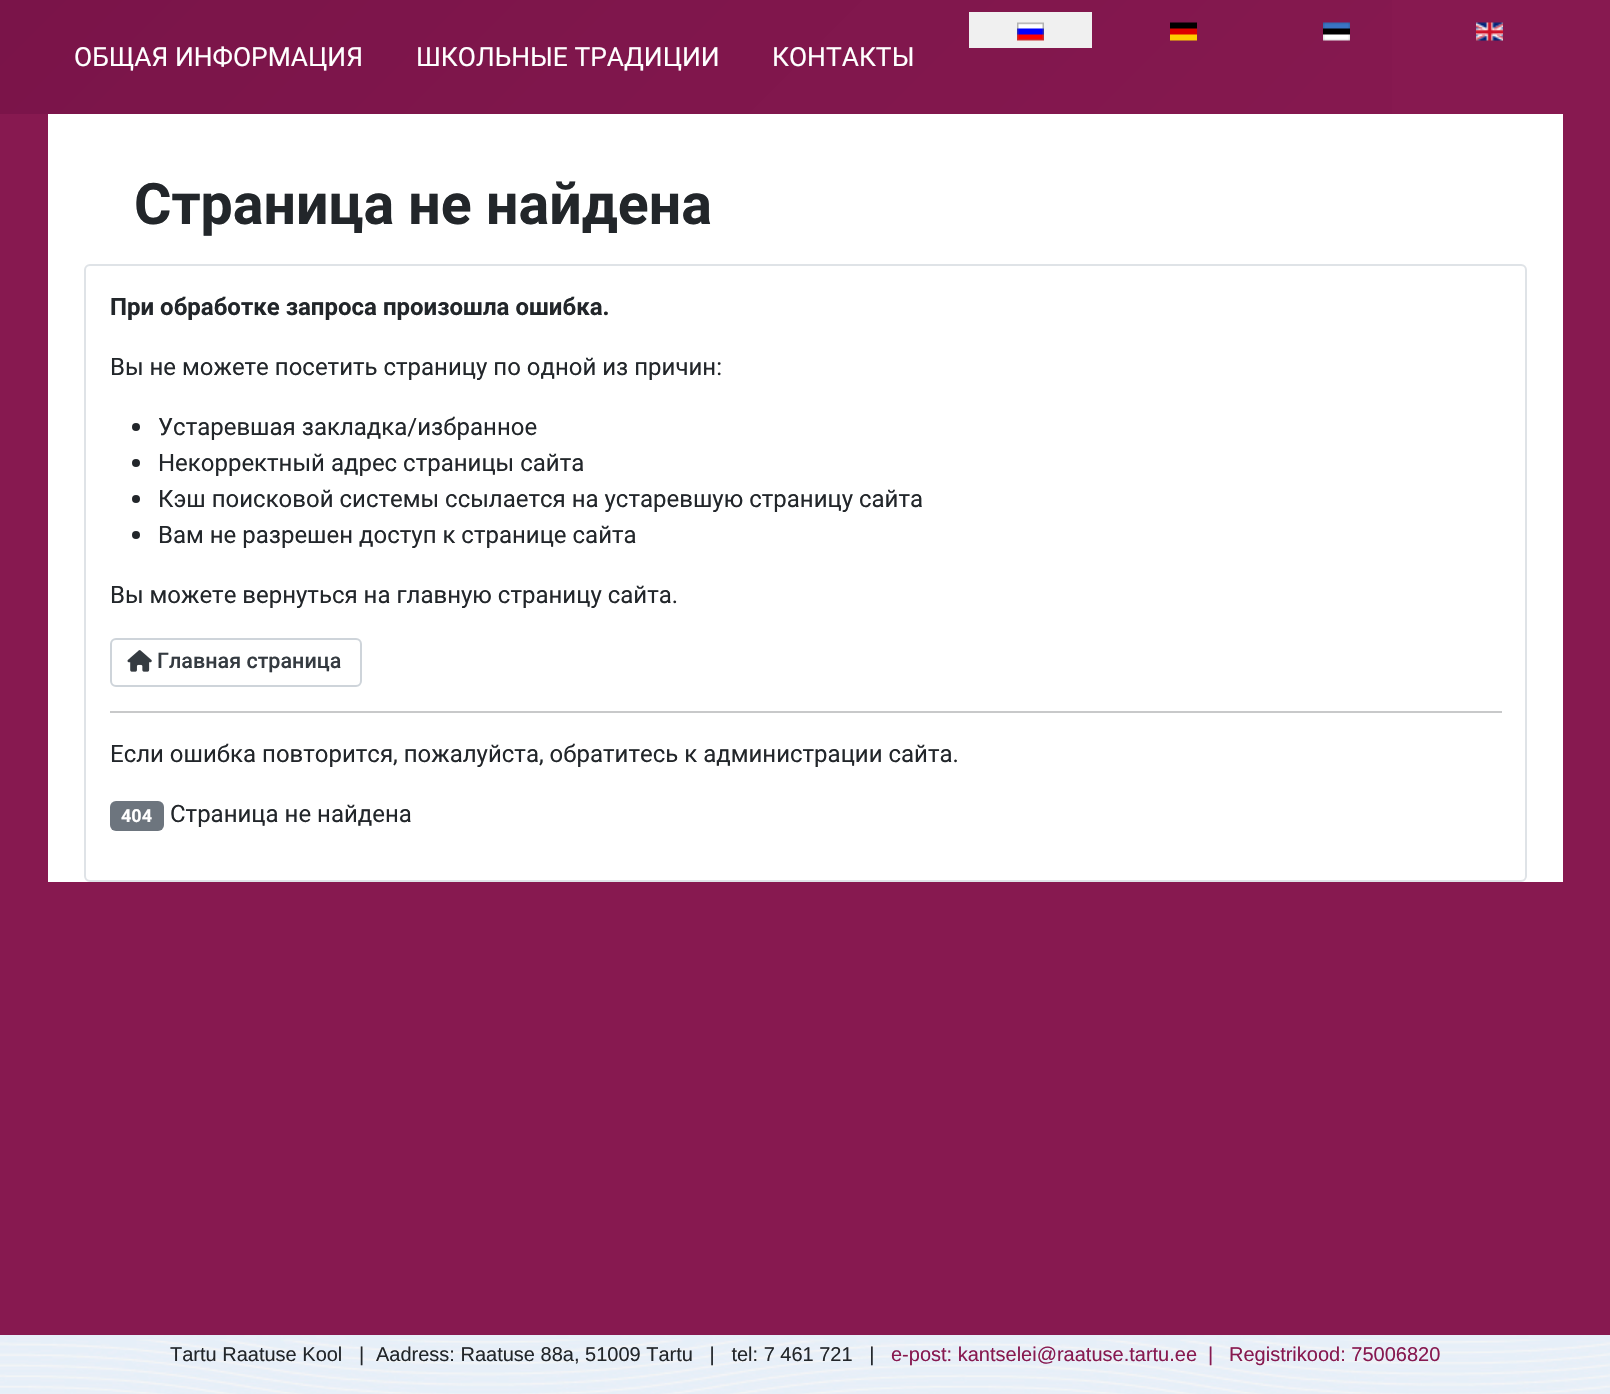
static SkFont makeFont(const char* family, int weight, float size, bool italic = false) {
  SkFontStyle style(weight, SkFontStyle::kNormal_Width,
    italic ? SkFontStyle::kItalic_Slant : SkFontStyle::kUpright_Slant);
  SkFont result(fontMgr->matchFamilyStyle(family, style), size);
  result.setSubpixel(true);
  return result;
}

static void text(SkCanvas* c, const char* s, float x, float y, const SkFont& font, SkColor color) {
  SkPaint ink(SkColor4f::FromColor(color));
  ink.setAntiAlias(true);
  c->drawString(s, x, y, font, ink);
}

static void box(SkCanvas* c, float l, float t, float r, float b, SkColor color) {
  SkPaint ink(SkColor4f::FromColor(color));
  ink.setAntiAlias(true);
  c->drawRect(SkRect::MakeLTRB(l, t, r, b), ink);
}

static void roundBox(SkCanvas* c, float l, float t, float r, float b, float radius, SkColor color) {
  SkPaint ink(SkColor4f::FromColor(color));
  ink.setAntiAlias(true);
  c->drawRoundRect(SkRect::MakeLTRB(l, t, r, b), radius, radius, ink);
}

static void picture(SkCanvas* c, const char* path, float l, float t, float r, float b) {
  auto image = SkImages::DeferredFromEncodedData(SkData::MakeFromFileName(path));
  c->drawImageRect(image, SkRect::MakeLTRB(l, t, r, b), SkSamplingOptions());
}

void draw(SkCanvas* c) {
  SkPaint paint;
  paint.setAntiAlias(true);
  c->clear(0xff871950);
  {
    const SkColor colors[] = {0xff7a1449, 0xff871950};
    const float stops[] = {0, 1};
    const SkPoint ends[] = {{374, -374}, {1237, 488}};
    paint.setShader(SkGradientShader::MakeLinear(ends, colors, stops, 2, SkTileMode::kClamp));
    paint.setAlpha(255);
  }
  c->drawRect(SkRect::MakeLTRB(0, 0, 1392, 114), paint);
  box(c, 969, 12, 1092, 48, 0xfff0f0f0);
  picture(c, "img_01.png", 1017, 22, 1044, 41);
  picture(c, "img_02.png", 1170, 22, 1197, 41);
  picture(c, "img_03.png", 1323, 22, 1350, 41);
  picture(c, "img_04.png", 1476, 22, 1503, 41);
  SkFont face1 = makeFont("Roboto", 400, 26.4f);
  text(c, "ОБЩАЯ ИНФОРМАЦИЯ", 74, 66, face1, 0xffffffff);
  text(c, "ШКОЛЬНЫЕ ТРАДИЦИИ", 416, 66, face1, 0xffffffff);
  text(c, "КОНТАКТЫ", 772, 66, face1, 0xffffffff);
  box(c, 48, 114, 1563, 882, 0xffffffff);
  SkFont face2 = makeFont("Roboto", 700, 57.25f);
  text(c, "Страница не найдена", 134, 224, face2, 0xff22262a);
  paint.setStyle(SkPaint::kStroke_Style);
  paint.setStrokeWidth(2);
  paint.setShader(nullptr);
  paint.setColor(0xffdfe3e7);
  c->drawRoundRect(SkRect::MakeLTRB(85, 265, 1526, 881), 5, 5, paint);
  SkFont face3 = makeFont("Roboto", 700, 24);
  text(c, "При обработке запроса произошла ошибка.", 110, 315, face3, 0xff22262a);
  SkFont face4 = makeFont("Roboto", 400, 24);
  text(c, "Вы не можете посетить страницу по одной из причин:", 110, 375, face4, 0xff22262a);
  paint.setStyle(SkPaint::kFill_Style);
  paint.setColor(0xff22262a);
  c->drawCircle(136, 427, 4, paint);
  text(c, "Устаревшая закладка/избранное", 158, 435, face4, 0xff22262a);
  c->drawCircle(136, 463, 4, paint);
  text(c, "Некорректный адрес страницы сайта", 158, 471, face4, 0xff22262a);
  c->drawCircle(136, 499, 4, paint);
  text(c, "Кэш поисковой системы ссылается на устаревшую страницу сайта", 158, 507, face4, 0xff22262a);
  c->drawCircle(136, 535, 4, paint);
  text(c, "Вам не разрешен доступ к странице сайта", 158, 543, face4, 0xff22262a);
  text(c, "Вы можете вернуться на главную страницу сайта.", 110, 603, face4, 0xff22262a);
  paint.setStyle(SkPaint::kStroke_Style);
  paint.setColor(0xffced4da);
  c->drawRoundRect(SkRect::MakeLTRB(111, 639, 361, 686), 5, 5, paint);
  picture(c, "img_05.png", 127, 650, 152, 672);
  SkFont face5 = makeFont("Roboto", 500, 21.5f);
  text(c, "Главная страница", 157, 668, face5, 0xff353b41);
  box(c, 110, 711, 1502, 713, 0xffc8c9ca);
  text(c, "Если ошибка повторится, пожалуйста, обратитесь к администрации сайта.", 110, 762, face4, 0xff22262a);
  roundBox(c, 110, 801, 164, 831, 6, 0xff6d757e);
  SkFont face6 = makeFont("Roboto", 700, 18);
  text(c, "404", 121, 822, face6, 0xffffffff);
  text(c, "Страница не найдена", 170, 822, face4, 0xff22262a);
  picture(c, "img_06.png", 0, 1335, 1610, 1394);
  SkFont face7 = makeFont("Liberation Sans", 400, 20);
  text(c, "Tartu Raatuse Kool   |", 170, 1361, face7, 0xff22262a);
  text(c, "Aadress: Raatuse 88a, 51009 Tartu   |   tel: 7 461 721   |", 376, 1361, face7, 0xff22262a);
  text(c, "e-post: kantselei@raatuse.tartu.ee", 891, 1361, face7, 0xff871950);
  text(c, "|", 1208, 1361, face7, 0xff871950);
  text(c, "Registrikood: 75006820", 1229, 1361, face7, 0xff871950);
}
